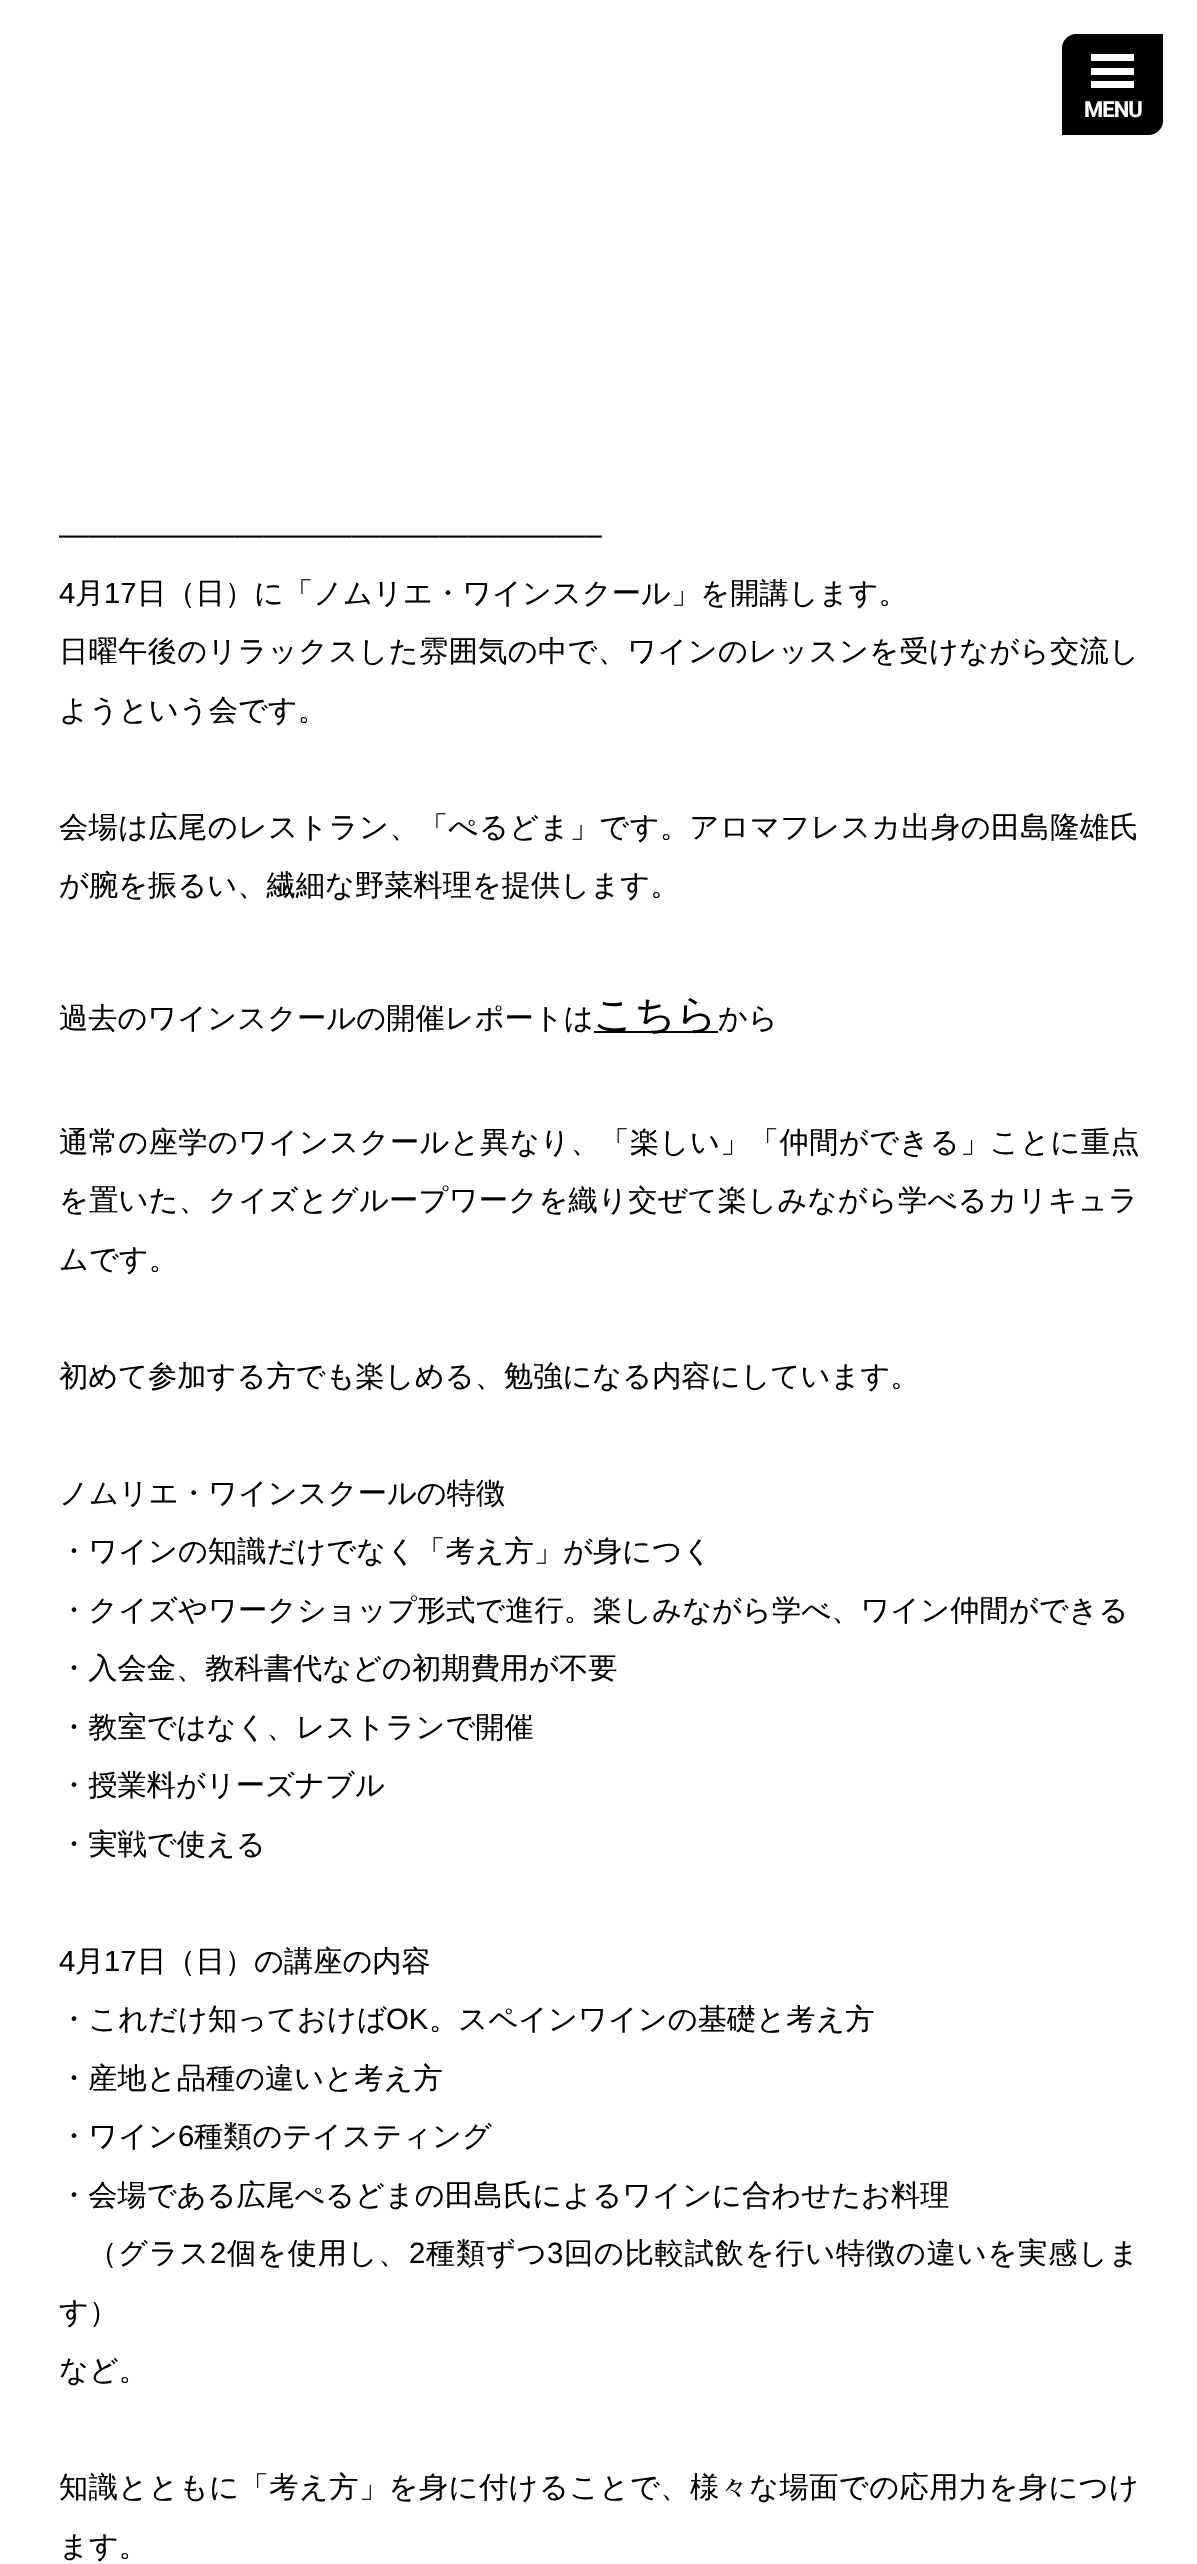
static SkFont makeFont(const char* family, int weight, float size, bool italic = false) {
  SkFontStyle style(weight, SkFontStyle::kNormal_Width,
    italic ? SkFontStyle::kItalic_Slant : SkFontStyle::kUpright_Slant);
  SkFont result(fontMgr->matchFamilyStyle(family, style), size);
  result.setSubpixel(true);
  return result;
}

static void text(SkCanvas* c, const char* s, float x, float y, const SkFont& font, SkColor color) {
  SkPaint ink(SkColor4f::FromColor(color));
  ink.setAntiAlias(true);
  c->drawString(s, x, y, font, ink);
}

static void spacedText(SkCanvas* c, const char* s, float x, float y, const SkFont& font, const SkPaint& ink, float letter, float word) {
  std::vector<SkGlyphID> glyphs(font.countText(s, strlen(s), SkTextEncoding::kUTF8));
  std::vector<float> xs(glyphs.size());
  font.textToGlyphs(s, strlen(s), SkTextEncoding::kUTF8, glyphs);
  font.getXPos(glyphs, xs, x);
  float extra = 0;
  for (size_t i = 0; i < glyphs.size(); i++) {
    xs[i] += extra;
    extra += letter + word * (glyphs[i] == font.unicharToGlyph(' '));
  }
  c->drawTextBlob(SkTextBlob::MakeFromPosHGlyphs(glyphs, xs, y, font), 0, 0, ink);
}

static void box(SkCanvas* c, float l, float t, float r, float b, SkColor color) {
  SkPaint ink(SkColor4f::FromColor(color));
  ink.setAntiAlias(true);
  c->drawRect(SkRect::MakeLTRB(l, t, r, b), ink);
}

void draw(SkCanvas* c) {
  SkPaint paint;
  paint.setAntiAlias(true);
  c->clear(0xffffffff);
  paint.setColor(0xff000000);
  c->drawPath(SkPathBuilder().moveTo(1076, 34).lineTo(1163, 34).lineTo(1163, 121).cubicTo(1163, 128.5f, 1156.5f, 135, 1149, 135).lineTo(1062, 135).lineTo(1062, 48).cubicTo(1062, 40.5f, 1068.5f, 34, 1076, 34).close().detach(), paint);
  box(c, 1091, 68, 1134, 75, 0xffffffff);
  box(c, 1091, 54, 1134, 61, 0xffffffff);
  box(c, 1091, 81, 1134, 88, 0xffffffff);
  SkFont face1 = makeFont("Roboto", 700, 22);
  paint.setColor(0xffffffff);
  spacedText(c, "MENU", 1084, 117, face1, paint, -1, 0);
  SkFont face2 = makeFont("Liberation Sans", 400, 29.25f);
  text(c, "——————————————————–", 59, 544, face2, 0xff000000);
  text(c, "4", 59, 603, face2, 0xff000000);
  SkFont face3 = makeFont("WenQuanYi Zen Hei", 500, 29.25f);
  text(c, "月", 75, 603, face3, 0xff000000);
  text(c, "17", 104, 603, face2, 0xff000000);
  text(c, "日（日）に「ノムリエ・ワインスクール」を開講します。", 137, 603, face3, 0xff000000);
  paint.setColor(0xff000000);
  spacedText(c, "日曜午後のリラックスした雰囲気の中で、ワインのレッスンを受けながら交流し", 59, 661, face3, paint, 0.3f, 0);
  text(c, "ようという会です。", 59, 720, face3, 0xff000000);
  spacedText(c, "会場は広尾のレストラン、「ぺるどま」です。アロマフレスカ出身の田島隆雄氏", 59, 837, face3, paint, 0.35f, 0);
  text(c, "が腕を振るい、繊細な野菜料理を提供します。", 59, 895, face3, 0xff000000);
  text(c, "過去のワインスクールの開催レポートは", 59, 1028, face3, 0xff000000);
  box(c, 594, 1031, 718, 1033, 0xff000000);
  SkFont face4 = makeFont("WenQuanYi Zen Hei", 500, 40.5f);
  text(c, "こちら", 593, 1028, face4, 0xff000000);
  text(c, "から", 718, 1028, face3, 0xff000000);
  spacedText(c, "通常の座学のワインスクールと異なり、「楽しい」「仲間ができる」ことに重点", 59, 1152, face3, paint, 0.4f, 0);
  spacedText(c, "を置いた、クイズとグループワークを織り交ぜて楽しみながら学べるカリキュラ", 59, 1210, face3, paint, 0.2f, 0);
  text(c, "ムです。", 59, 1269, face3, 0xff000000);
  text(c, "初めて参加する方でも楽しめる、勉強になる内容にしています。", 59, 1386, face3, 0xff000000);
  text(c, "ノムリエ・ワインスクールの特徴", 59, 1503, face3, 0xff000000);
  text(c, "・ワインの知識だけでなく「考え方」が身につく", 59, 1561, face3, 0xff000000);
  text(c, "・クイズやワークショップ形式で進行。楽しみながら学べ、ワイン仲間ができる", 59, 1620, face3, 0xff000000);
  text(c, "・入会金、教科書代などの初期費用が不要", 59, 1678, face3, 0xff000000);
  text(c, "・教室ではなく、レストランで開催", 59, 1737, face3, 0xff000000);
  text(c, "・授業料がリーズナブル", 59, 1795, face3, 0xff000000);
  text(c, "・実戦で使える", 59, 1854, face3, 0xff000000);
  text(c, "4", 59, 1971, face2, 0xff000000);
  text(c, "月", 75, 1971, face3, 0xff000000);
  text(c, "17", 104, 1971, face2, 0xff000000);
  text(c, "日（日）の講座の内容", 137, 1971, face3, 0xff000000);
  text(c, "・これだけ知っておけば", 59, 2029, face3, 0xff000000);
  text(c, "OK", 386, 2029, face2, 0xff000000);
  text(c, "。スペインワインの基礎と考え方", 429, 2029, face3, 0xff000000);
  text(c, "・産地と品種の違いと考え方", 59, 2088, face3, 0xff000000);
  text(c, "・ワイン", 59, 2146, face3, 0xff000000);
  text(c, "6", 178, 2146, face2, 0xff000000);
  text(c, "種類のテイスティング", 194, 2146, face3, 0xff000000);
  text(c, "・会場である広尾ぺるどまの田島氏によるワインに合わせたお料理", 59, 2205, face3, 0xff000000);
  spacedText(c, "（グラス", 88, 2263, face3, paint, 0.75f, 0);
  spacedText(c, "2", 210, 2263, face2, paint, 0.75f, 0);
  spacedText(c, "個を使用し、", 227, 2263, face3, paint, 0.75f, 0);
  spacedText(c, "2", 409, 2263, face2, paint, 0.75f, 0);
  spacedText(c, "種類ずつ", 426, 2263, face3, paint, 0.75f, 0);
  spacedText(c, "3", 547, 2263, face2, paint, 0.75f, 0);
  spacedText(c, "回の比較試飲を行い特徴の違いを実感しま", 564, 2263, face3, paint, 0.75f, 0);
  text(c, "す）", 59, 2322, face3, 0xff000000);
  text(c, "など。", 59, 2380, face3, 0xff000000);
  spacedText(c, "知識とともに「考え方」を身に付けることで、様々な場面での応用力を身につけ", 59, 2497, face3, paint, 0.4f, 0);
  text(c, "ます。", 59, 2556, face3, 0xff000000);
}
